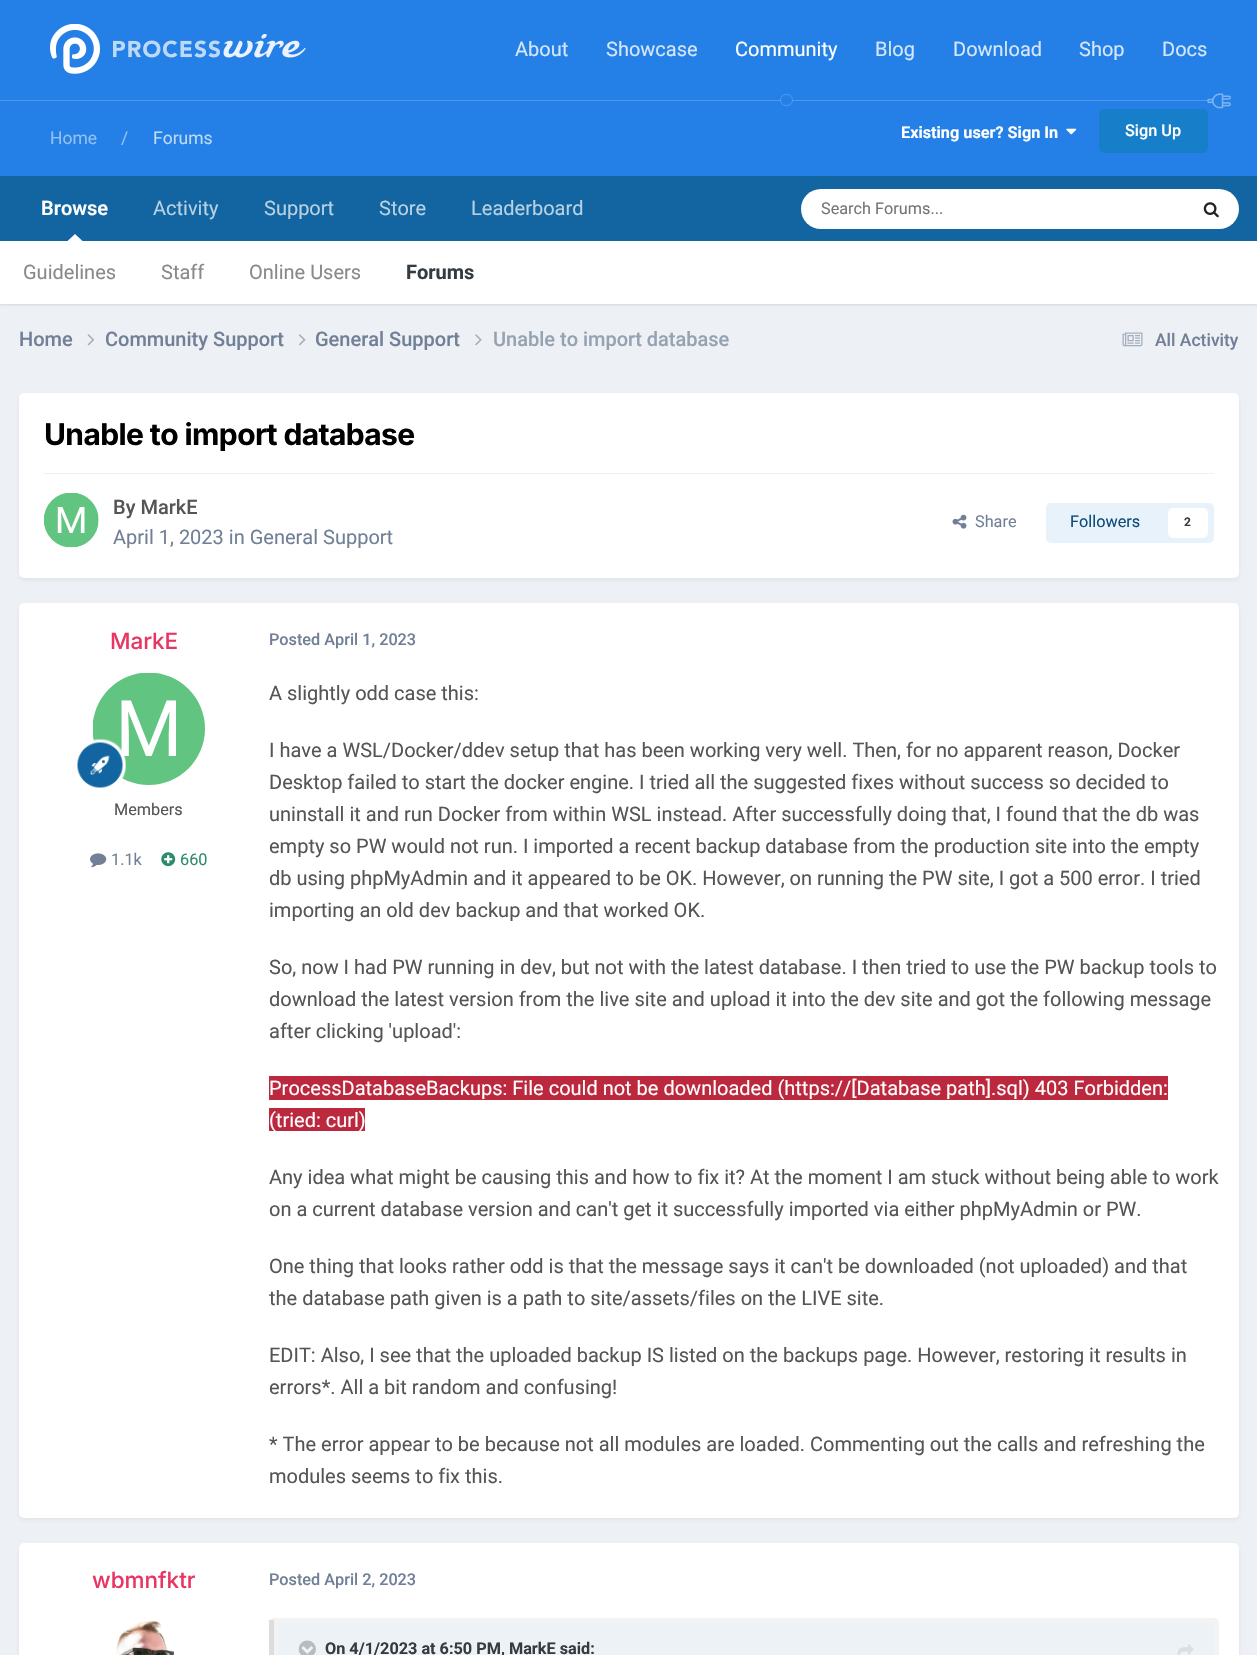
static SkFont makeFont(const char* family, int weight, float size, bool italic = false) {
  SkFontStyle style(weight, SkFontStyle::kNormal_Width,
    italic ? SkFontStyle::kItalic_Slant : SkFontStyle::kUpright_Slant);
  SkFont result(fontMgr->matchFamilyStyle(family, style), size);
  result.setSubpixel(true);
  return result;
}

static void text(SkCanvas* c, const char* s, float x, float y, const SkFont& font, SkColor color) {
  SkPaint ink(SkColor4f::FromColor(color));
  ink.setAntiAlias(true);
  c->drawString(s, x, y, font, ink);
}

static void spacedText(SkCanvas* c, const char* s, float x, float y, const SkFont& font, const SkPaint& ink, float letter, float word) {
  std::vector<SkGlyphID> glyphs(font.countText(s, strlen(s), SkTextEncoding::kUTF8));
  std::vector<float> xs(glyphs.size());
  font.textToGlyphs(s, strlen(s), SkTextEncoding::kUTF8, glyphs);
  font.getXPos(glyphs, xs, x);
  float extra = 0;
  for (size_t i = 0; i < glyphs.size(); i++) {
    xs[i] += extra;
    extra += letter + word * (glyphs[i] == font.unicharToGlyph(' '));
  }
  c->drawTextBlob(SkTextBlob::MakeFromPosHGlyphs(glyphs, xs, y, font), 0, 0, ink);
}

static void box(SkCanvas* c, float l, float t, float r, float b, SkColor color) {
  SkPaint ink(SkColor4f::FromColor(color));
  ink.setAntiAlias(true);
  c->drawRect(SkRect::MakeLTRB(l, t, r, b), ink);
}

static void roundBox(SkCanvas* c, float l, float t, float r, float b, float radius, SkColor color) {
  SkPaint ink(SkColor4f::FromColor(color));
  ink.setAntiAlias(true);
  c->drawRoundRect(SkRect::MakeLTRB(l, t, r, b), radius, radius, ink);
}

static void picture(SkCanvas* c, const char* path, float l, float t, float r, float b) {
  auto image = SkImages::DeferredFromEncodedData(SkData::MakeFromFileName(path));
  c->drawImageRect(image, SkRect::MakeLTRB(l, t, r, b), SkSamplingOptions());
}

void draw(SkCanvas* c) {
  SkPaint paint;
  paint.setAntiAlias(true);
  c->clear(0xffedf0f4);
  box(c, 0, 0, 1257, 100, 0xff2480e6);
  picture(c, "img_01.png", 50, 24, 100, 74);
  picture(c, "img_02.png", 113, 34, 306, 58);
  SkFont face1 = makeFont("Roboto", 400, 20);
  text(c, "About", 515, 56, face1, 0xffd3e6fa);
  text(c, "Showcase", 606, 56, face1, 0xffd3e6fa);
  text(c, "Community", 735, 56, face1, 0xffffffff);
  box(c, 0, 100, 1208, 101, 0xff5099eb);
  box(c, 0, 101, 1257, 176, 0xff2480e6);
  paint.setColor(0xff2480e6);
  c->drawRoundRect(SkRect::MakeLTRB(780.5f, 94.5f, 792.5f, 105.5f), 5.5f, 5.5f, paint);
  paint.setStyle(SkPaint::kStroke_Style);
  paint.setStrokeWidth(1);
  paint.setColor(0xff5099eb);
  c->drawRoundRect(SkRect::MakeLTRB(780.5f, 94.5f, 792.5f, 105.5f), 5.5f, 5.5f, paint);
  text(c, "Blog", 875, 56, face1, 0xffd3e6fa);
  text(c, "Download", 953, 56, face1, 0xffd3e6fa);
  text(c, "Shop", 1079, 56, face1, 0xffd3e6fa);
  text(c, "Docs", 1162, 56, face1, 0xffd3e6fa);
  box(c, 1208, 100, 1257, 101, 0xff2480e6);
  picture(c, "img_03.png", 1207, 93, 1231, 109);
  SkFont face2 = makeFont("Roboto", 400, 17.5f);
  text(c, "Home", 50, 144, face2, 0xff92c0f3);
  text(c, "/", 121, 144, face2, 0xff92c0f3);
  text(c, "Forums", 153, 144, face2, 0xffbdd9f8);
  SkFont face3 = makeFont("Roboto", 700, 16.25f);
  text(c, "Existing user? Sign In", 901, 138, face3, 0xffffffff);
  picture(c, "img_04.png", 1066, 128, 1077, 135);
  roundBox(c, 1099, 109, 1208, 153, 5, 0xff177ec9);
  SkFont face4 = makeFont("Roboto", 500, 16.25f);
  text(c, "Sign Up", 1125, 136, face4, 0xffffffff);
  box(c, 0, 176, 1257, 241, 0xff1265a1);
  SkFont face5 = makeFont("Roboto", 600, 20);
  text(c, "Browse", 41, 215, face5, 0xffffffff);
  paint.setStyle(SkPaint::kFill_Style);
  paint.setColor(0x1a000000);
  paint.setMaskFilter(SkMaskFilter::MakeBlur(kNormal_SkBlurStyle, 1));
  c->drawRect(SkRect::MakeLTRB(0, 243, 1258, 305), paint);
  paint.setMaskFilter(nullptr);
  paint.setColor(0xffffffff);
  c->drawPath(SkPathBuilder().moveTo(82.5f, 241).lineTo(67.5f, 241).lineTo(75, 234).close().detach(), paint);
  box(c, 0, 241, 1257, 304, 0xffffffff);
  text(c, "Guidelines", 23, 279, face1, 0xff868a8d);
  text(c, "Staff", 161, 279, face1, 0xff868a8d);
  text(c, "Online Users", 249, 279, face1, 0xff868a8d);
  SkFont face6 = makeFont("Roboto", 700, 20);
  text(c, "Forums", 406, 279, face6, 0xff353c41);
  text(c, "Activity", 153, 215, face1, 0xffb8d1e3);
  text(c, "Support", 264, 215, face1, 0xffb8d1e3);
  text(c, "Store", 379, 215, face1, 0xffb8d1e3);
  text(c, "Leaderboard", 471, 215, face1, 0xffb8d1e3);
  roundBox(c, 801, 189, 1239, 229, 20, 0xffffffff);
  SkFont face7 = makeFont("Roboto", 400, 16.25f);
  text(c, "Search Forums...", 821, 214, face7, 0xff757575);
  picture(c, "img_05.png", 1203, 202, 1219, 218);
  SkFont face8 = makeFont("Roboto", 500, 20);
  text(c, "Home", 19, 346, face8, 0xff718096);
  picture(c, "img_06.png", 87, 334, 94, 346);
  text(c, "Community Support", 105, 346, face8, 0xff718096);
  picture(c, "img_07.png", 299, 334, 306, 346);
  text(c, "General Support", 315, 346, face8, 0xff718096);
  picture(c, "img_08.png", 475, 334, 482, 346);
  text(c, "Unable to import database", 493, 346, face8, 0xff96a2b2);
  picture(c, "img_09.png", 1122, 332, 1143, 347);
  SkFont face9 = makeFont("Roboto", 500, 17.5f);
  text(c, "All Activity", 1155, 346, face9, 0xff718096);
  paint.setColor(0x1a2d3748);
  paint.setMaskFilter(SkMaskFilter::MakeBlur(kNormal_SkBlurStyle, 2.5f));
  c->drawRoundRect(SkRect::MakeLTRB(20, 396, 1238, 579), 4, 4, paint);
  paint.setMaskFilter(nullptr);
  roundBox(c, 19, 393, 1239, 578, 5, 0xffffffff);
  SkFont face10 = makeFont("Inter", 700, 30);
  paint.setColor(0xff000000);
  spacedText(c, "Unable to import database", 44, 445, face10, paint, -0.6f, 0);
  box(c, 44, 473, 1214, 474, 0xffefeff0);
  picture(c, "img_10.png", 44, 493, 99, 548);
  text(c, "By MarkE", 113, 514, face8, 0xff555555);
  text(c, "April 1, 2023 in General Support", 113, 544, face1, 0xff718096);
  picture(c, "img_11.png", 952, 514, 967, 529);
  text(c, "Share", 975, 527, face7, 0xff718096);
  roundBox(c, 1046, 503, 1214, 543, 5, 0xffe8f2fa);
  text(c, "Followers", 1070, 527, face7, 0xff0e4c79);
  roundBox(c, 1168, 508, 1208, 538, 5, 0xffffffff);
  SkFont face11 = makeFont("Roboto", 700, 12);
  text(c, "2", 1184, 526, face11, 0xff353c41);
  paint.setColor(0x1a2d3748);
  paint.setMaskFilter(SkMaskFilter::MakeBlur(kNormal_SkBlurStyle, 2.5f));
  c->drawRoundRect(SkRect::MakeLTRB(20, 606, 1238, 1519), 4, 4, paint);
  paint.setMaskFilter(nullptr);
  roundBox(c, 19, 603, 1239, 1518, 5, 0xffffffff);
  SkFont face12 = makeFont("Inter", 500, 22.5f);
  text(c, "MarkE", 110, 649, face12, 0xffe83561);
  picture(c, "img_12.png", 93, 673, 205, 785);
  picture(c, "img_13.png", 77, 739, 126, 788);
  text(c, "Members", 114, 815, face7, 0xff555555);
  picture(c, "img_14.png", 90, 853, 107, 868);
  text(c, "1.1k", 111, 865, face7, 0xff718096);
  picture(c, "img_15.png", 161, 852, 176, 867);
  text(c, "660", 180, 865, face7, 0xff2c8c69);
  text(c, "Posted April 1, 2023", 269, 645, face4, 0xff718096);
  text(c, "A slightly odd case this:", 269, 700, face1, 0xff555555);
  text(c, "I have a WSL/Docker/ddev setup that has been working very well. Then, for no apparent reason, Docker", 269, 757, face1, 0xff555555);
  text(c, "Desktop failed to start the docker engine. I tried all the suggested fixes without success so decided to", 269, 789, face1, 0xff555555);
  text(c, "uninstall it and run Docker from within WSL instead. After successfully doing that, I found that the db was", 269, 821, face1, 0xff555555);
  text(c, "empty so PW would not run. I imported a recent backup database from the production site into the empty", 269, 853, face1, 0xff555555);
  text(c, "db using phpMyAdmin and it appeared to be OK. However, on running the PW site, I got a 500 error. I tried", 269, 885, face1, 0xff555555);
  text(c, "importing an old dev backup and that worked OK.", 269, 917, face1, 0xff555555);
  text(c, "So, now I had PW running in dev, but not with the latest database. I then tried to use the PW backup tools to", 269, 974, face1, 0xff555555);
  text(c, "download the latest version from the live site and upload it into the dev site and got the following message", 269, 1006, face1, 0xff555555);
  text(c, "after clicking 'upload':", 269, 1038, face1, 0xff555555);
  box(c, 269, 1076, 1168, 1100, 0xffbc283d);
  text(c, "ProcessDatabaseBackups: File could not be downloaded (https://[Database path].sql) 403 Forbidden:", 269, 1095, face1, 0xffffffff);
  box(c, 269, 1108, 365, 1131, 0xffbc283d);
  text(c, "(tried: curl)", 269, 1127, face1, 0xffffffff);
  text(c, "Any idea what might be causing this and how to fix it? At the moment I am stuck without being able to work", 269, 1184, face1, 0xff555555);
  text(c, "on a current database version and can't get it successfully imported via either phpMyAdmin or PW.", 269, 1216, face1, 0xff555555);
  text(c, "One thing that looks rather odd is that the message says it can't be downloaded (not uploaded) and that", 269, 1273, face1, 0xff555555);
  text(c, "the database path given is a path to site/assets/files on the LIVE site.", 269, 1305, face1, 0xff555555);
  text(c, "EDIT: Also, I see that the uploaded backup IS listed on the backups page. However, restoring it results in", 269, 1362, face1, 0xff555555);
  text(c, "errors*. All a bit random and confusing!", 269, 1394, face1, 0xff555555);
  text(c, "* The error appear to be because not all modules are loaded. Commenting out the calls and refreshing the", 269, 1451, face1, 0xff555555);
  text(c, "modules seems to fix this.", 269, 1483, face1, 0xff555555);
  paint.setMaskFilter(SkMaskFilter::MakeBlur(kNormal_SkBlurStyle, 2.5f));
  c->drawRoundRect(SkRect::MakeLTRB(20, 1546, 1238, 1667), 4, 4, paint);
  paint.setMaskFilter(nullptr);
  roundBox(c, 19, 1543, 1239, 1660, 5, 0xffffffff);
  text(c, "wbmnfktr", 92, 1588, face12, 0xffe83561);
  picture(c, "img_16.png", 116, 1620, 174, 1655);
  text(c, "Posted April 2, 2023", 269, 1585, face4, 0xff718096);
  roundBox(c, 269, 1618, 1219, 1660, 5, 0xfff3f3f3);
  box(c, 269, 1620, 274, 1655, 0xffdddddd);
  paint.setColor(0xffedf2f7);
  c->drawPath(SkPathBuilder().moveTo(279, 1623).lineTo(1209, 1623).cubicTo(1212, 1623, 1214, 1625, 1214, 1628).lineTo(1214, 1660).lineTo(279, 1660).close().detach(), paint);
  picture(c, "img_17.png", 298, 1640, 316, 1655);
  text(c, "On 4/1/2023 at 6:50 PM, MarkE said:", 325, 1654, face3, 0xff353c41);
  picture(c, "img_18.png", 1177, 1644, 1194, 1655);
}
